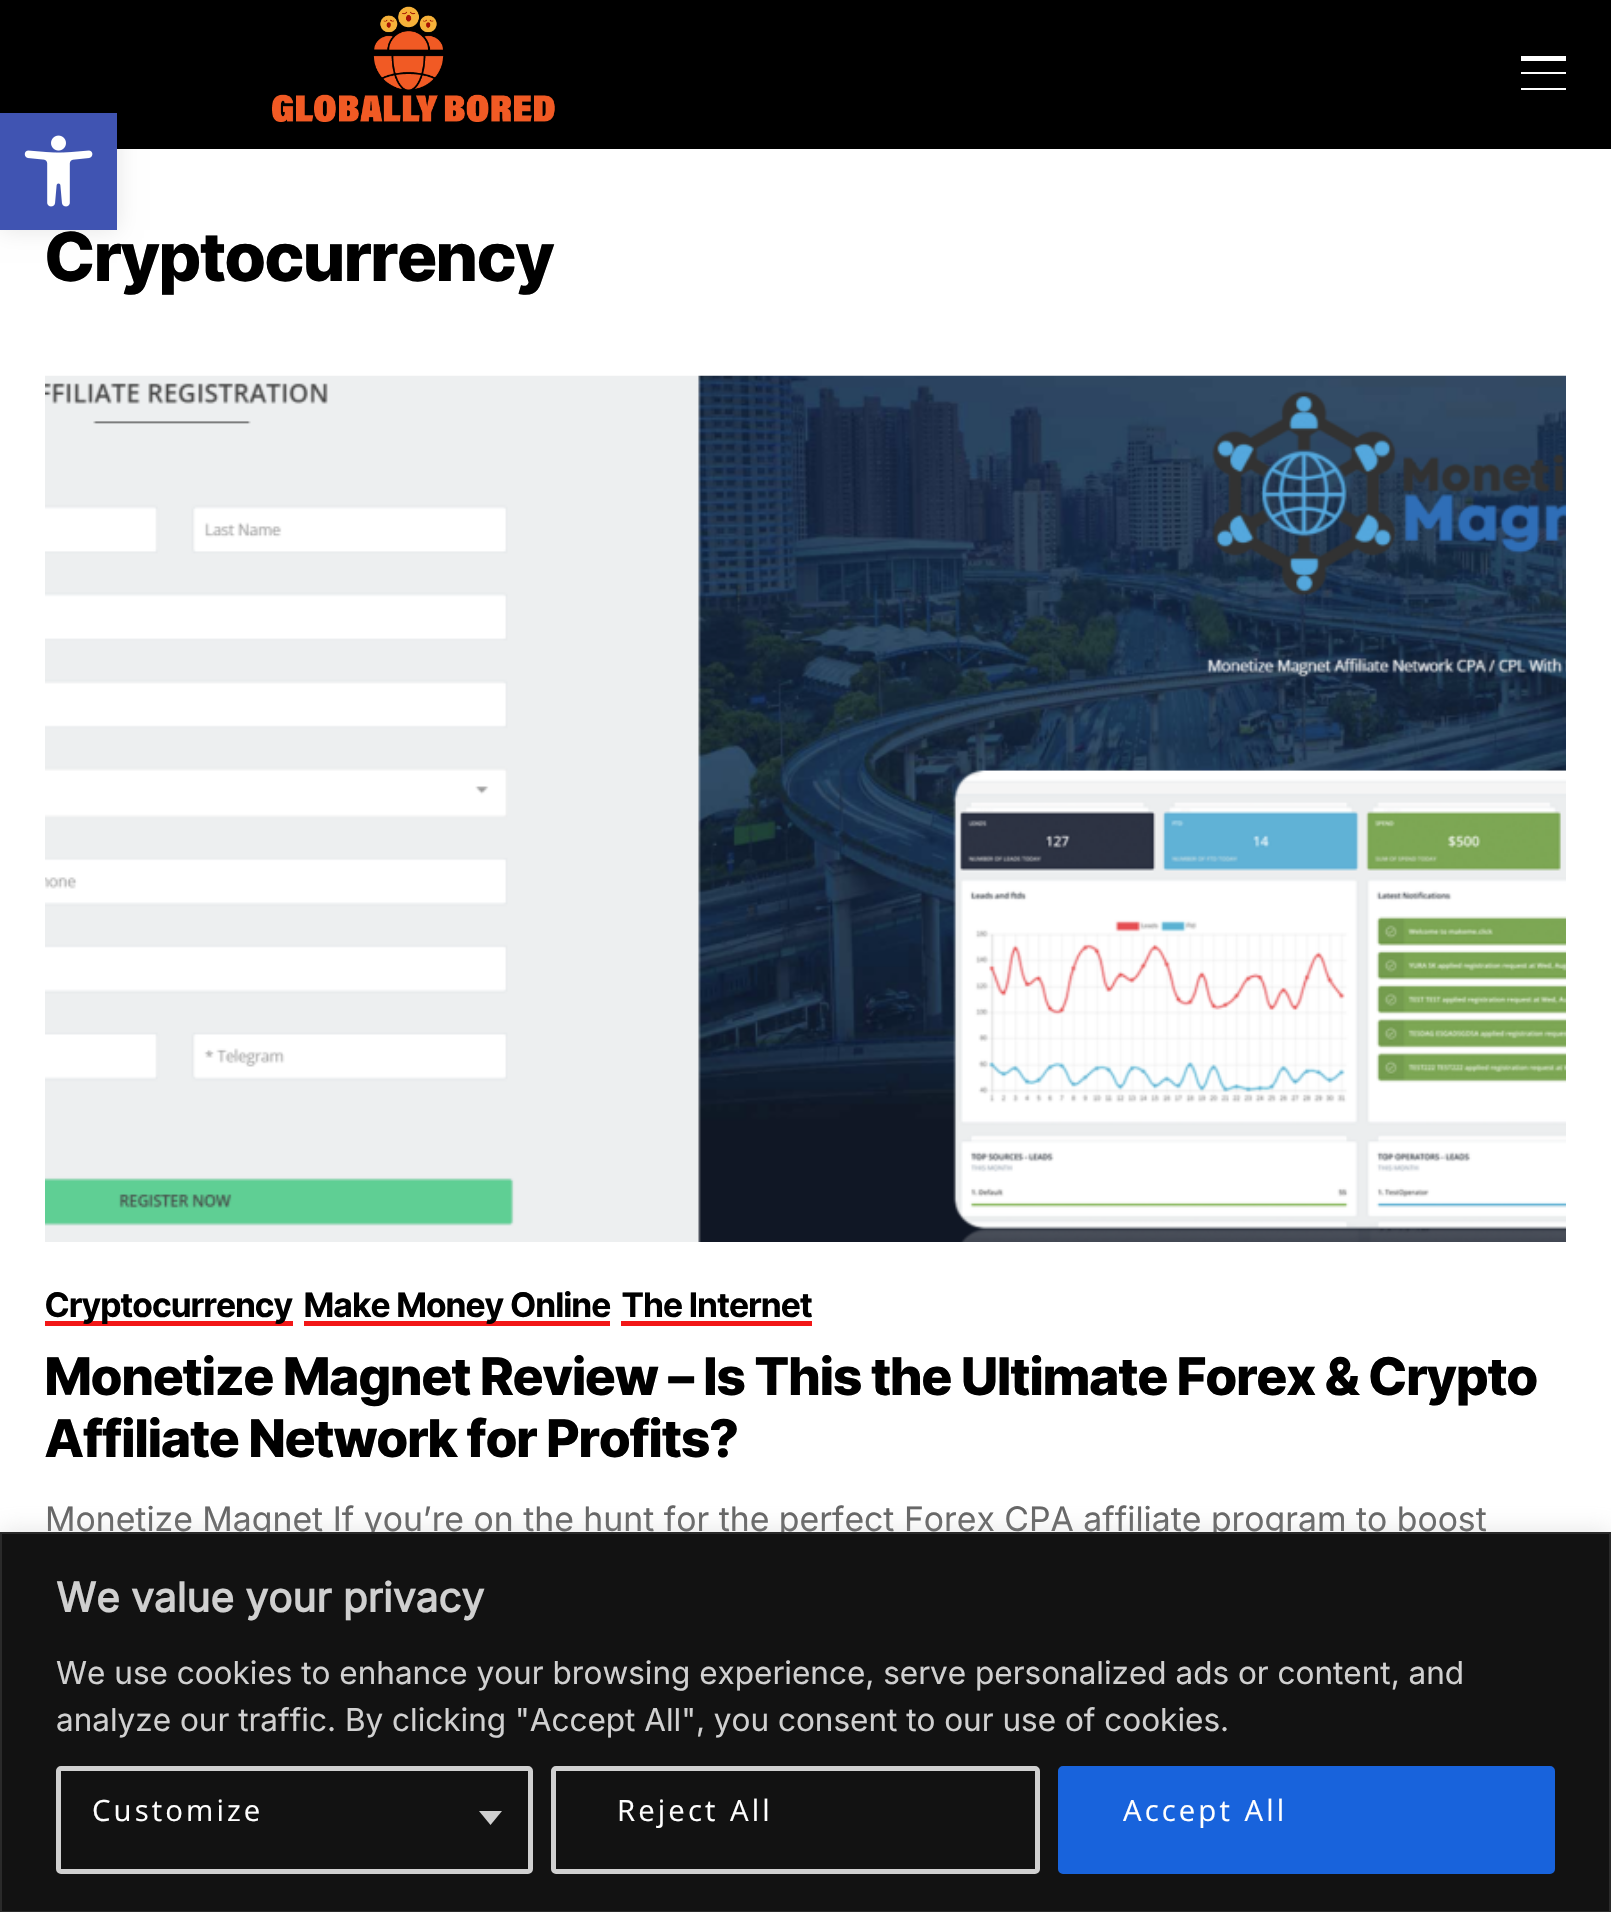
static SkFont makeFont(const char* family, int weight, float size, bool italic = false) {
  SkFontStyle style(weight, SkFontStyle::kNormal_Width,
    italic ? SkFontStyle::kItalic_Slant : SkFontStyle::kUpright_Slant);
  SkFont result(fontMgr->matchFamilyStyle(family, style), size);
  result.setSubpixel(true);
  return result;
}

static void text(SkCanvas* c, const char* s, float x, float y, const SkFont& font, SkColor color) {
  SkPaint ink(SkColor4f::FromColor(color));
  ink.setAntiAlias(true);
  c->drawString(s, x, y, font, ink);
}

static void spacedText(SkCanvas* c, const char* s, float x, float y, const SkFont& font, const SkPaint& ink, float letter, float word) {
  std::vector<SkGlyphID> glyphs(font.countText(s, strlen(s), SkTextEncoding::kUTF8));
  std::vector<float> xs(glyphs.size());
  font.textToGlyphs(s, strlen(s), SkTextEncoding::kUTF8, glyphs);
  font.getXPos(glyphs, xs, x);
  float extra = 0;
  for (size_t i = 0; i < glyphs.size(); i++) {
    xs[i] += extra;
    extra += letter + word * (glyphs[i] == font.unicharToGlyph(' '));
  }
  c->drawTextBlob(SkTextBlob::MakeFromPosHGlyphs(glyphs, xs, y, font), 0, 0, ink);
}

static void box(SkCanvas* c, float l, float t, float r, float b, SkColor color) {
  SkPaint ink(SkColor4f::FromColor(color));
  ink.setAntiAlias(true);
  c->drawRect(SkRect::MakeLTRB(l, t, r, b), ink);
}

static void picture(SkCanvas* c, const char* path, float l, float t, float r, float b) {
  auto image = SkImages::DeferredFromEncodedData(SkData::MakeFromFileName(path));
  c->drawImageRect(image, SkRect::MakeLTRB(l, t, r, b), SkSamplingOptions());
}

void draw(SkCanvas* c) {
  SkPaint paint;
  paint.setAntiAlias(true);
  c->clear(0xffffffff);
  box(c, 0, 0, 1611, 149, 0xff000000);
  paint.setColor(0x1a000000);
  paint.setMaskFilter(SkMaskFilter::MakeBlur(kNormal_SkBlurStyle, 11));
  c->drawRect(SkRect::MakeLTRB(0, 113, 117, 230), paint);
  paint.setMaskFilter(nullptr);
  box(c, 0, 113, 117, 230, 0xff4054b2);
  picture(c, "img_01.png", 24, 135, 93, 207);
  picture(c, "img_02.png", 272, 6, 555, 122);
  box(c, 1521, 56, 1566, 61, 0xffffffff);
  box(c, 1521, 72, 1566, 74, 0xffffffff);
  box(c, 1521, 88, 1566, 90, 0xffffffff);
  SkFont face1 = makeFont("Inter Tight", 800, 67.5f);
  text(c, "Cryptocurrency", 45, 281, face1, 0xff000000);
  picture(c, "img_03.png", 45, 375, 1566, 1242);
  box(c, 45, 1321, 293, 1326, 0xfff21717);
  SkFont face2 = makeFont("Inter Tight", 700, 33.75f);
  text(c, "Cryptocurrency", 45, 1317, face2, 0xff000000);
  box(c, 304, 1321, 610, 1326, 0xfff21717);
  text(c, "Make Money Online", 304, 1317, face2, 0xff000000);
  text(c, "The Internet", 622, 1317, face2, 0xff000000);
  box(c, 621, 1321, 812, 1326, 0xfff21717);
  SkFont face3 = makeFont("Inter Tight", 800, 51.75f);
  text(c, "Monetize Magnet Review – Is This the Ultimate Forex & Crypto", 45, 1395, face3, 0xff000000);
  text(c, "Affiliate Network for Profits?", 45, 1457, face3, 0xff000000);
  SkFont face4 = makeFont("Inter", 400, 33.75f);
  text(c, "Monetize Magnet If you’re on the hunt for the perfect Forex CPA affiliate program to boost", 45, 1531, face4, 0xff666666);
  paint.setColor(0x4dacabab);
  paint.setMaskFilter(SkMaskFilter::MakeBlur(kNormal_SkBlurStyle, 11));
  c->drawRect(SkRect::MakeLTRB(0, 1530, 1611, 1910), paint);
  paint.setMaskFilter(nullptr);
  paint.setColor(0xff121212);
  c->drawRect(SkRect::MakeLTRB(1, 1533, 1610, 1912), paint);
  paint.setStyle(SkPaint::kStroke_Style);
  paint.setStrokeWidth(2);
  paint.setColor(0xff2a2a2a);
  c->drawRect(SkRect::MakeLTRB(1, 1533, 1610, 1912), paint);
  SkFont face5 = makeFont("Inter", 700, 40.5f);
  text(c, "We value your privacy", 56, 1612, face5, 0xffd0d0d0);
  SkFont face6 = makeFont("Inter", 400, 31.5f);
  text(c, "We use cookies to enhance your browsing experience, serve personalized ads or content, and", 56, 1684, face6, 0xffd0d0d0);
  text(c, "analyze our traffic. By clicking \"Accept All\", you consent to our use of cookies.", 56, 1731, face6, 0xffd0d0d0);
  paint.setStrokeWidth(5);
  paint.setColor(0xffd0d0d0);
  c->drawRoundRect(SkRect::MakeLTRB(58.5f, 1768.5f, 530.5f, 1871.5f), 2.5f, 2.5f, paint);
  SkFont face7 = makeFont("Khula", 400, 31.5f);
  paint.setStyle(SkPaint::kFill_Style);
  paint.setColor(0xffffffff);
  spacedText(c, "Customize", 92, 1821, face7, paint, 3.1f, 0);
  paint.setColor(0xffd0d0d0);
  c->drawPath(SkPathBuilder().moveTo(479, 1811).lineTo(502, 1811).lineTo(490.5f, 1825).close().detach(), paint);
  paint.setStyle(SkPaint::kStroke_Style);
  c->drawRoundRect(SkRect::MakeLTRB(553.5f, 1768.5f, 1037.5f, 1871.5f), 2.5f, 2.5f, paint);
  paint.setStyle(SkPaint::kFill_Style);
  paint.setColor(0xffffffff);
  spacedText(c, "Reject All", 617, 1821, face7, paint, 3.1f, 0);
  paint.setColor(0xff1863dc);
  c->drawRoundRect(SkRect::MakeLTRB(1060.5f, 1768.5f, 1552.5f, 1871.5f), 2.5f, 2.5f, paint);
  paint.setStyle(SkPaint::kStroke_Style);
  c->drawRoundRect(SkRect::MakeLTRB(1060.5f, 1768.5f, 1552.5f, 1871.5f), 2.5f, 2.5f, paint);
  paint.setStyle(SkPaint::kFill_Style);
  paint.setColor(0xffffffff);
  spacedText(c, "Accept All", 1123, 1821, face7, paint, 3.1f, 0);
}
